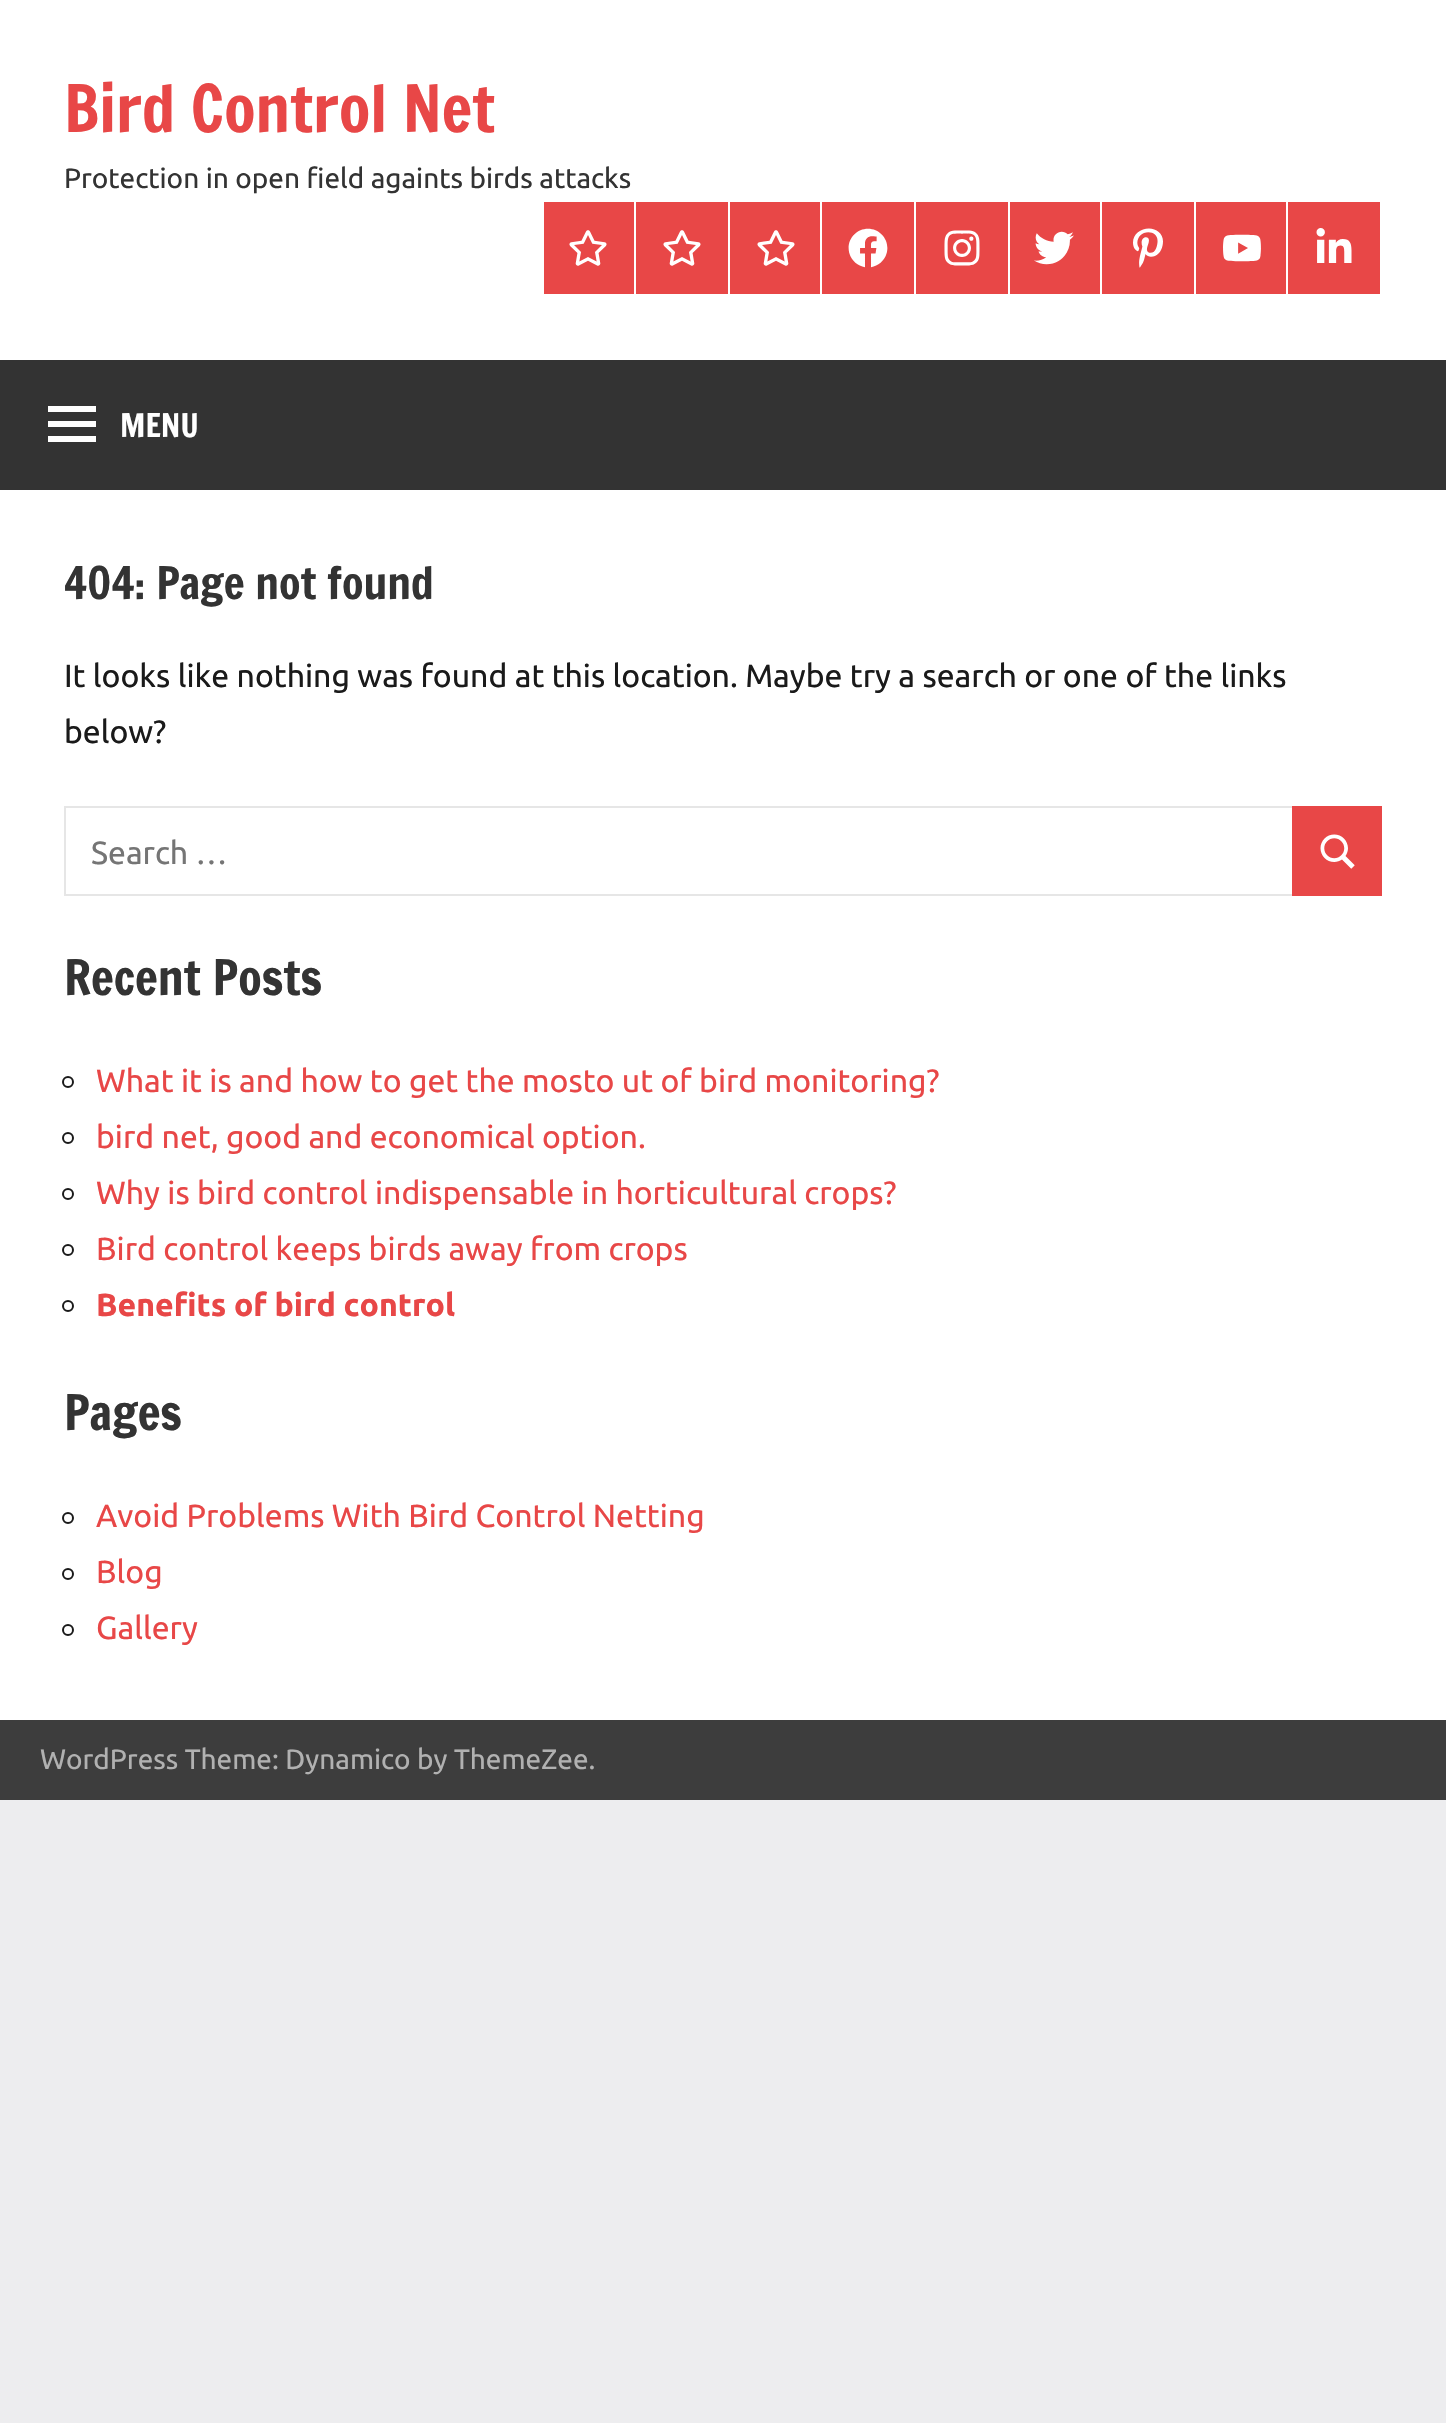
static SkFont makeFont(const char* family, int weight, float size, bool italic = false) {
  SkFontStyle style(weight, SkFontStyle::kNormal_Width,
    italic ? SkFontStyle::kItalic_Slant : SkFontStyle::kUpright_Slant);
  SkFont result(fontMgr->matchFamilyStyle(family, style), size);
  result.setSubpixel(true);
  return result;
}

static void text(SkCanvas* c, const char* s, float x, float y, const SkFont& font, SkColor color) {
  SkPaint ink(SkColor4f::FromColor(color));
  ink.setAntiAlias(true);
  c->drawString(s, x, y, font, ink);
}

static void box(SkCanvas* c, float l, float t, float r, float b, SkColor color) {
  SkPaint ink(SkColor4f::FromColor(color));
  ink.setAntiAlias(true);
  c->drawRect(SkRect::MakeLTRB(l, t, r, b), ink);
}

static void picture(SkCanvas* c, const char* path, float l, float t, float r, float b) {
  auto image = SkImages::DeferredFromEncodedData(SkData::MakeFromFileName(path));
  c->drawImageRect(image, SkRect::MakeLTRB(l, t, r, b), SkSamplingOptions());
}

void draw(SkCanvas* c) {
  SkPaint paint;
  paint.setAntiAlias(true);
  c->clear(0xffededef);
  box(c, 0, 0, 1446, 360, 0xffffffff);
  SkFont face1 = makeFont("Francois One", 400, 64);
  text(c, "Bird Control Net", 64, 132, face1, 0xffe84747);
  SkFont face2 = makeFont("Ubuntu", 400, 28);
  text(c, "Protection in open field againts birds attacks", 64, 188, face2, 0xff333333);
  box(c, 544, 202, 634, 294, 0xffe84747);
  picture(c, "img_01.png", 569, 230, 607, 266);
  box(c, 636, 202, 728, 294, 0xffe84747);
  picture(c, "img_01.png", 663, 230, 701, 266);
  box(c, 730, 202, 820, 294, 0xffe84747);
  picture(c, "img_02.png", 757, 230, 795, 266);
  box(c, 822, 202, 914, 294, 0xffe84747);
  picture(c, "img_03.png", 848, 228, 888, 268);
  box(c, 916, 202, 1008, 294, 0xffe84747);
  picture(c, "img_04.png", 944, 230, 980, 266);
  box(c, 1010, 202, 1100, 294, 0xffe84747);
  picture(c, "img_05.png", 1034, 231, 1074, 265);
  box(c, 1102, 202, 1194, 294, 0xffe84747);
  picture(c, "img_06.png", 1133, 228, 1163, 268);
  box(c, 1196, 202, 1286, 294, 0xffe84747);
  picture(c, "img_07.png", 1223, 234, 1261, 262);
  box(c, 1288, 202, 1380, 294, 0xffe84747);
  picture(c, "img_08.png", 1316, 228, 1352, 263);
  box(c, 0, 360, 1446, 490, 0xff333333);
  picture(c, "img_09.png", 48, 406, 96, 442);
  SkFont face3 = makeFont("Francois One", 400, 32);
  text(c, "MENU", 120, 437, face3, 0xffffffff);
  box(c, 0, 490, 1446, 1720, 0xffffffff);
  SkFont face4 = makeFont("Francois One", 400, 44);
  text(c, "404: Page not found", 64, 599, face4, 0xff333333);
  SkFont face5 = makeFont("Ubuntu", 400, 32);
  text(c, "It looks like nothing was found at this location. Maybe try a search or one of the links", 64, 687, face5, 0xff1a1a1a);
  text(c, "below?", 64, 743, face5, 0xff1a1a1a);
  paint.setStyle(SkPaint::kStroke_Style);
  paint.setStrokeWidth(2);
  paint.setColor(0xffe6e6e6);
  c->drawRect(SkRect::MakeLTRB(65, 807, 1293, 895), paint);
  text(c, "Search …", 91, 864, face5, 0xff757575);
  box(c, 1292, 806, 1382, 896, 0xffe84747);
  picture(c, "img_10.png", 1320, 834, 1355, 869);
  SkFont face6 = makeFont("Francois One", 400, 48);
  text(c, "Recent Posts", 64, 995, face6, 0xff333333);
  paint.setColor(0xff1a1a1a);
  c->drawCircle(68, 1082, 5, paint);
  text(c, "What it is and how to get the mosto ut of bird monitoring?", 96, 1092, face5, 0xffe84747);
  c->drawCircle(68, 1138, 5, paint);
  text(c, "bird net, good and economical option.", 96, 1148, face5, 0xffe84747);
  c->drawCircle(68, 1194, 5, paint);
  text(c, "Why is bird control indispensable in horticultural crops?", 96, 1204, face5, 0xffe84747);
  c->drawCircle(68, 1250, 5, paint);
  text(c, "Bird control keeps birds away from crops", 96, 1260, face5, 0xffe84747);
  c->drawCircle(68, 1306, 5, paint);
  SkFont face7 = makeFont("Ubuntu", 700, 32);
  text(c, "Benefits of bird control", 96, 1316, face7, 0xffe84747);
  text(c, "Pages", 64, 1430, face6, 0xff333333);
  c->drawCircle(68, 1518, 5, paint);
  text(c, "Avoid Problems With Bird Control Netting", 96, 1527, face5, 0xffe84747);
  c->drawCircle(68, 1574, 5, paint);
  text(c, "Blog", 96, 1583, face5, 0xffe84747);
  c->drawCircle(68, 1630, 5, paint);
  text(c, "Gallery", 96, 1639, face5, 0xffe84747);
  box(c, 0, 1720, 1446, 1800, 0xff3d3d3d);
  text(c, "WordPress Theme: Dynamico by ThemeZee.", 40, 1769, face2, 0xffb1b1b1);
}
